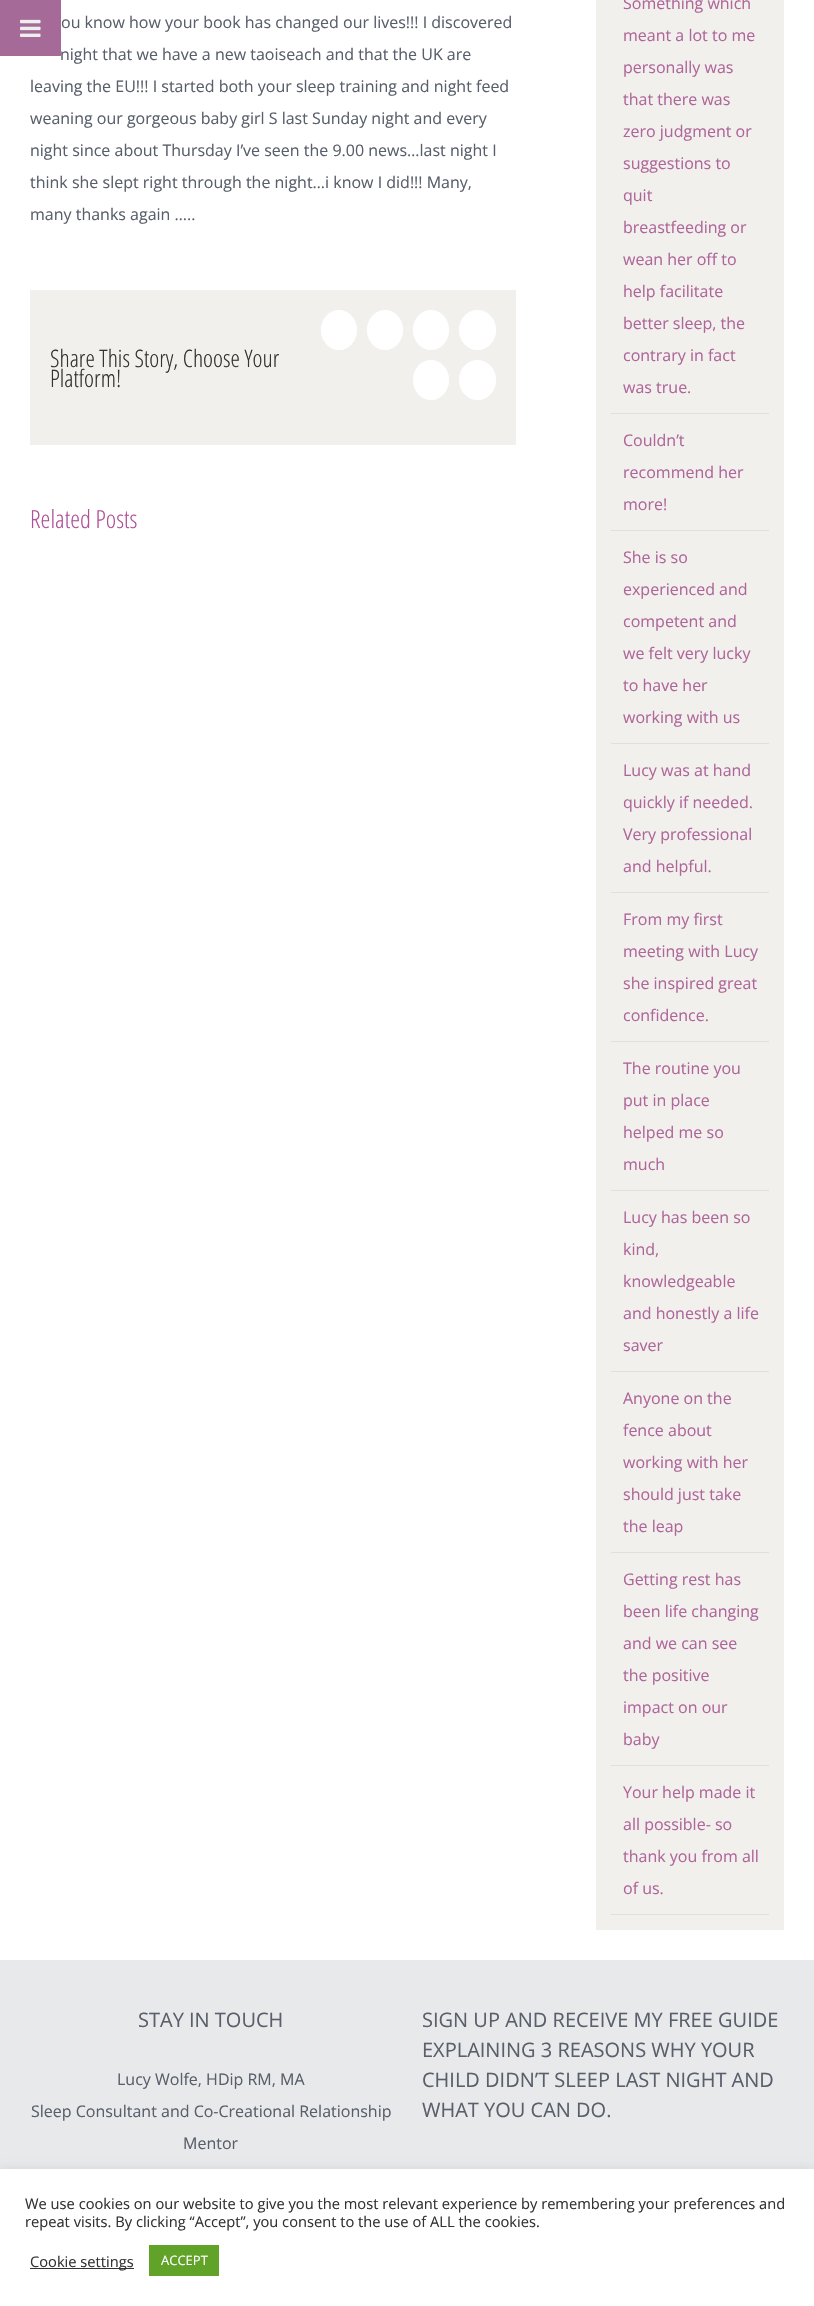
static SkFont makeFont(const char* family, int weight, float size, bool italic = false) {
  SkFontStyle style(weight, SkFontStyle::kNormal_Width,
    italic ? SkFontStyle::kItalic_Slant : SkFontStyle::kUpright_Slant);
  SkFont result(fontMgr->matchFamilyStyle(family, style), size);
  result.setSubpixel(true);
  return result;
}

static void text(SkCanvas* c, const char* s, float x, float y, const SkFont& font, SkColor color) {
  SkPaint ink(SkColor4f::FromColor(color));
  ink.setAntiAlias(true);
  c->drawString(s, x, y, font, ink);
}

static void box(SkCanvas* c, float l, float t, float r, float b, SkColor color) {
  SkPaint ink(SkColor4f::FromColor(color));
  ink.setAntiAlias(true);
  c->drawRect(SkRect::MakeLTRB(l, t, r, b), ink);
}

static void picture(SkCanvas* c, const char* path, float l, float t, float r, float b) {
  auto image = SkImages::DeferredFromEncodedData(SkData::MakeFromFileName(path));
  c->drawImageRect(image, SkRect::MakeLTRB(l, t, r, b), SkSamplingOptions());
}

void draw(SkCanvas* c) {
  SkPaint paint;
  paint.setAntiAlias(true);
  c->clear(0xffffffff);
  box(c, 0, 0, 61, 56, 0xffa56a97);
  picture(c, "img_01.png", 20, 19, 41, 37);
  SkFont face1 = makeFont("Open Sans", 400, 16);
  text(c, "ou know how your book has changed our lives!!! I discovered", 61, 28, face1, 0xff595f6b);
  text(c, "night that we have a new taoiseach and that the UK are", 60, 60, face1, 0xff595f6b);
  text(c, "leaving the EU!!! I started both your sleep training and night feed", 30, 92, face1, 0xff595f6b);
  text(c, "weaning our gorgeous baby girl S last Sunday night and every", 30, 124, face1, 0xff595f6b);
  text(c, "night since about Thursday I’ve seen the 9.00 news…last night I", 30, 156, face1, 0xff595f6b);
  text(c, "think she slept right through the night…i know I did!!! Many,", 30, 188, face1, 0xff595f6b);
  text(c, "many thanks again …..", 30, 220, face1, 0xff595f6b);
  box(c, 30, 290, 516, 445, 0xfff1f0ec);
  SkFont face2 = makeFont("Open Sans Condensed", 300, 24);
  text(c, "Share This Story, Choose Your", 50, 367, face2, 0xff333333);
  text(c, "Platform!", 50, 387, face2, 0xff333333);
  paint.setColor(0xffffffff);
  c->drawOval(SkRect::MakeLTRB(321, 310, 357, 350), paint);
  paint.setStyle(SkPaint::kStroke_Style);
  paint.setStrokeWidth(1);
  c->drawPath(SkPathBuilder().moveTo(339, 310.5f).cubicTo(348.5f, 310.5f, 356.5f, 319, 356.5f, 330).cubicTo(356.5f, 341, 348.5f, 349.5f, 339, 349.5f).cubicTo(329.5f, 349.5f, 321.5f, 341, 321.5f, 330).cubicTo(321.5f, 319, 329.5f, 310.5f, 339, 310.5f).close().detach(), paint);
  paint.setStyle(SkPaint::kFill_Style);
  c->drawOval(SkRect::MakeLTRB(367, 310, 403, 350), paint);
  paint.setStyle(SkPaint::kStroke_Style);
  c->drawPath(SkPathBuilder().moveTo(385, 310.5f).cubicTo(394.5f, 310.5f, 402.5f, 319, 402.5f, 330).cubicTo(402.5f, 341, 394.5f, 349.5f, 385, 349.5f).cubicTo(375.5f, 349.5f, 367.5f, 341, 367.5f, 330).cubicTo(367.5f, 319, 375.5f, 310.5f, 385, 310.5f).close().detach(), paint);
  paint.setStyle(SkPaint::kFill_Style);
  c->drawOval(SkRect::MakeLTRB(413, 310, 449, 350), paint);
  paint.setStyle(SkPaint::kStroke_Style);
  c->drawPath(SkPathBuilder().moveTo(431, 310.5f).cubicTo(440.5f, 310.5f, 448.5f, 319, 448.5f, 330).cubicTo(448.5f, 341, 440.5f, 349.5f, 431, 349.5f).cubicTo(421.5f, 349.5f, 413.5f, 341, 413.5f, 330).cubicTo(413.5f, 319, 421.5f, 310.5f, 431, 310.5f).close().detach(), paint);
  paint.setStyle(SkPaint::kFill_Style);
  c->drawOval(SkRect::MakeLTRB(459, 310, 496, 350), paint);
  paint.setStyle(SkPaint::kStroke_Style);
  c->drawPath(SkPathBuilder().moveTo(477.5f, 310.5f).cubicTo(487.5f, 310.5f, 495.5f, 319, 495.5f, 330).cubicTo(495.5f, 341, 487.5f, 349.5f, 477.5f, 349.5f).cubicTo(467.5f, 349.5f, 459.5f, 341, 459.5f, 330).cubicTo(459.5f, 319, 467.5f, 310.5f, 477.5f, 310.5f).close().detach(), paint);
  paint.setStyle(SkPaint::kFill_Style);
  c->drawOval(SkRect::MakeLTRB(413, 360, 449, 400), paint);
  paint.setStyle(SkPaint::kStroke_Style);
  c->drawPath(SkPathBuilder().moveTo(431, 360.5f).cubicTo(440.5f, 360.5f, 448.5f, 369, 448.5f, 380).cubicTo(448.5f, 391, 440.5f, 399.5f, 431, 399.5f).cubicTo(421.5f, 399.5f, 413.5f, 391, 413.5f, 380).cubicTo(413.5f, 369, 421.5f, 360.5f, 431, 360.5f).close().detach(), paint);
  paint.setStyle(SkPaint::kFill_Style);
  c->drawOval(SkRect::MakeLTRB(459, 360, 496, 400), paint);
  paint.setStyle(SkPaint::kStroke_Style);
  c->drawPath(SkPathBuilder().moveTo(477.5f, 360.5f).cubicTo(487.5f, 360.5f, 495.5f, 369, 495.5f, 380).cubicTo(495.5f, 391, 487.5f, 399.5f, 477.5f, 399.5f).cubicTo(467.5f, 399.5f, 459.5f, 391, 459.5f, 380).cubicTo(459.5f, 369, 467.5f, 360.5f, 477.5f, 360.5f).close().detach(), paint);
  SkFont face3 = makeFont("Open Sans Condensed", 300, 25);
  text(c, "Related Posts", 30, 528, face3, 0xffaf5098);
  box(c, 596, 0, 784, 1930, 0xfff1f0ec);
  box(c, 611, 413, 769, 414, 0xffe0dede);
  text(c, "Something which", 623, 9, face1, 0xffaf669a);
  text(c, "meant a lot to me", 623, 41, face1, 0xffaf669a);
  text(c, "personally was", 623, 73, face1, 0xffaf669a);
  text(c, "that there was", 623, 105, face1, 0xffaf669a);
  text(c, "zero judgment or", 623, 137, face1, 0xffaf669a);
  text(c, "suggestions to", 623, 169, face1, 0xffaf669a);
  text(c, "quit", 623, 201, face1, 0xffaf669a);
  text(c, "breastfeeding or", 623, 233, face1, 0xffaf669a);
  text(c, "wean her off to", 623, 265, face1, 0xffaf669a);
  text(c, "help facilitate", 623, 297, face1, 0xffaf669a);
  text(c, "better sleep, the", 623, 329, face1, 0xffaf669a);
  text(c, "contrary in fact", 623, 361, face1, 0xffaf669a);
  text(c, "was true.", 623, 393, face1, 0xffaf669a);
  box(c, 611, 530, 769, 531, 0xffe0dede);
  text(c, "Couldn’t", 623, 446, face1, 0xffaf669a);
  text(c, "recommend her", 623, 478, face1, 0xffaf669a);
  text(c, "more!", 623, 510, face1, 0xffaf669a);
  box(c, 611, 743, 769, 744, 0xffe0dede);
  text(c, "She is so", 623, 563, face1, 0xffaf669a);
  text(c, "experienced and", 623, 595, face1, 0xffaf669a);
  text(c, "competent and", 623, 627, face1, 0xffaf669a);
  text(c, "we felt very lucky", 623, 659, face1, 0xffaf669a);
  text(c, "to have her", 623, 691, face1, 0xffaf669a);
  text(c, "working with us", 623, 723, face1, 0xffaf669a);
  box(c, 611, 892, 769, 893, 0xffe0dede);
  text(c, "Lucy was at hand", 623, 776, face1, 0xffaf669a);
  text(c, "quickly if needed.", 623, 808, face1, 0xffaf669a);
  text(c, "Very professional", 623, 840, face1, 0xffaf669a);
  text(c, "and helpful.", 623, 872, face1, 0xffaf669a);
  box(c, 611, 1041, 769, 1042, 0xffe0dede);
  text(c, "From my first", 623, 925, face1, 0xffaf669a);
  text(c, "meeting with Lucy", 623, 957, face1, 0xffaf669a);
  text(c, "she inspired great", 623, 989, face1, 0xffaf669a);
  text(c, "confidence.", 623, 1021, face1, 0xffaf669a);
  box(c, 611, 1190, 769, 1191, 0xffe0dede);
  text(c, "The routine you", 623, 1074, face1, 0xffaf669a);
  text(c, "put in place", 623, 1106, face1, 0xffaf669a);
  text(c, "helped me so", 623, 1138, face1, 0xffaf669a);
  text(c, "much", 623, 1170, face1, 0xffaf669a);
  box(c, 611, 1371, 769, 1372, 0xffe0dede);
  text(c, "Lucy has been so", 623, 1223, face1, 0xffaf669a);
  text(c, "kind,", 623, 1255, face1, 0xffaf669a);
  text(c, "knowledgeable", 623, 1287, face1, 0xffaf669a);
  text(c, "and honestly a life", 623, 1319, face1, 0xffaf669a);
  text(c, "saver", 623, 1351, face1, 0xffaf669a);
  box(c, 611, 1552, 769, 1553, 0xffe0dede);
  text(c, "Anyone on the", 623, 1404, face1, 0xffaf669a);
  text(c, "fence about", 623, 1436, face1, 0xffaf669a);
  text(c, "working with her", 623, 1468, face1, 0xffaf669a);
  text(c, "should just take", 623, 1500, face1, 0xffaf669a);
  text(c, "the leap", 623, 1532, face1, 0xffaf669a);
  box(c, 611, 1765, 769, 1766, 0xffe0dede);
  text(c, "Getting rest has", 623, 1585, face1, 0xffaf669a);
  text(c, "been life changing", 623, 1617, face1, 0xffaf669a);
  text(c, "and we can see", 623, 1649, face1, 0xffaf669a);
  text(c, "the positive", 623, 1681, face1, 0xffaf669a);
  text(c, "impact on our", 623, 1713, face1, 0xffaf669a);
  text(c, "baby", 623, 1745, face1, 0xffaf669a);
  box(c, 611, 1914, 769, 1915, 0xffe0dede);
  text(c, "Your help made it", 623, 1798, face1, 0xffaf669a);
  text(c, "all possible- so", 623, 1830, face1, 0xffaf669a);
  text(c, "thank you from all", 623, 1862, face1, 0xffaf669a);
  text(c, "of us.", 623, 1894, face1, 0xffaf669a);
  box(c, 0, 1960, 814, 2169, 0xffe8e9ea);
  SkFont face4 = makeFont("Open Sans", 400, 20);
  text(c, "STAY IN TOUCH", 138, 2027, face4, 0xff595f6b);
  text(c, "Lucy Wolfe, HDip RM, MA", 117, 2085, face1, 0xff595f6b);
  text(c, "Sleep Consultant and Co-Creational Relationship", 31, 2117, face1, 0xff595f6b);
  text(c, "Mentor", 183, 2149, face1, 0xff595f6b);
  text(c, "SIGN UP AND RECEIVE MY FREE GUIDE", 422, 2027, face4, 0xff595f6b);
  text(c, "EXPLAINING 3 REASONS WHY YOUR", 422, 2057, face4, 0xff595f6b);
  text(c, "CHILD DIDN’T SLEEP LAST NIGHT AND", 422, 2087, face4, 0xff595f6b);
  text(c, "WHAT YOU CAN DO.", 422, 2117, face4, 0xff595f6b);
  paint.setStyle(SkPaint::kFill_Style);
  paint.setColor(0x4dacabab);
  paint.setMaskFilter(SkMaskFilter::MakeBlur(kNormal_SkBlurStyle, 5));
  c->drawRect(SkRect::MakeLTRB(0, 2168, 814, 2305), paint);
  paint.setMaskFilter(nullptr);
  box(c, 0, 2169, 814, 2306, 0xffffffff);
  SkFont face5 = makeFont("Open Sans", 400, 14.67f);
  text(c, "We use cookies on our website to give you the most relevant experience by remembering your preferences and", 25, 2209, face5, 0xff333333);
  text(c, "repeat visits. By clicking “Accept”, you consent to the use of ALL the cookies.", 25, 2227, face5, 0xff333333);
  box(c, 30, 2268, 134, 2269, 0xff333333);
  text(c, "Cookie settings", 30, 2267, face5, 0xff333333);
  box(c, 149, 2245, 219, 2276, 0xff61a229);
  SkFont face6 = makeFont("Open Sans", 400, 13);
  text(c, "ACCEPT", 161, 2265, face6, 0xffffffff);
}
